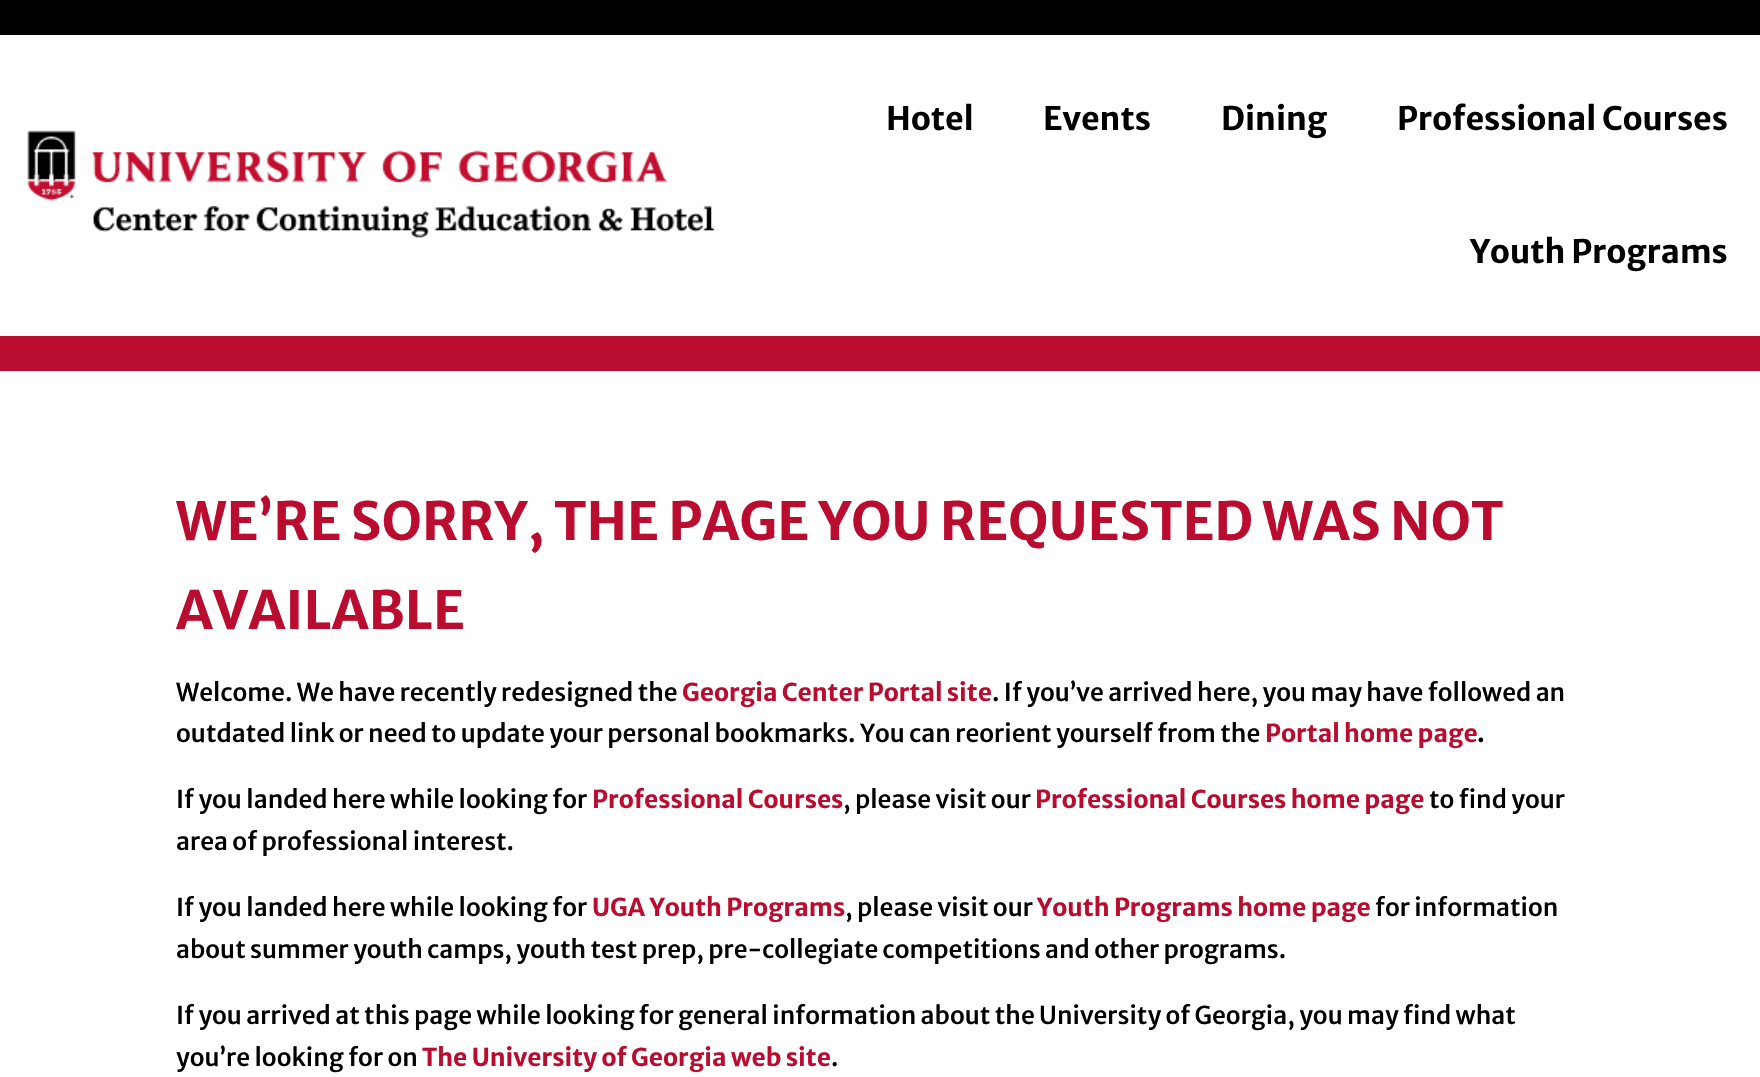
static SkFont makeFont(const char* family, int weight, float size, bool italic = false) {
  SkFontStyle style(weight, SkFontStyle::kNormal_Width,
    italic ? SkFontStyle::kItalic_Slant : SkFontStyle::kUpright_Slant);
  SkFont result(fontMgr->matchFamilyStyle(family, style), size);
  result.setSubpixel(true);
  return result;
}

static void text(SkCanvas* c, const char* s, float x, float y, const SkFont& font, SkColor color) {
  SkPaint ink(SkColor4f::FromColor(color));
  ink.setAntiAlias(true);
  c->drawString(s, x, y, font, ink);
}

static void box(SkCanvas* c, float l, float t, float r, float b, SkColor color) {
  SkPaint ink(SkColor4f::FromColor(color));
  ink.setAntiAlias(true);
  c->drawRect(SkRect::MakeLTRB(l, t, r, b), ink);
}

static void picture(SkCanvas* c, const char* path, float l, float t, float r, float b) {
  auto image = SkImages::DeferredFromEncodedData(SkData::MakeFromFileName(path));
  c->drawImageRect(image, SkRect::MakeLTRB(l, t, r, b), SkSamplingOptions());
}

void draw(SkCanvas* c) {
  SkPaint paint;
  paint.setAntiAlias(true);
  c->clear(0xffffffff);
  box(c, 0, 0, 1760, 35, 0xff000000);
  box(c, 0, 336, 1760, 371, 0xffba0c2f);
  picture(c, "img_01.png", 27, 130, 714, 238);
  SkFont face1 = makeFont("Merriweather Sans", 700, 32.25f);
  text(c, "Hotel", 886, 130, face1, 0xff000000);
  text(c, "Events", 1043, 130, face1, 0xff000000);
  text(c, "Dining", 1221, 130, face1, 0xff000000);
  text(c, "Professional Courses", 1397, 130, face1, 0xff000000);
  text(c, "Youth Programs", 1470, 263, face1, 0xff000000);
  SkFont face2 = makeFont("Merriweather Sans", 700, 52.5f);
  text(c, "WE’RE SORRY, THE PAGE YOU REQUESTED WAS NOT", 176, 540, face2, 0xffba0c2f);
  text(c, "AVAILABLE", 176, 629, face2, 0xffba0c2f);
  SkFont face3 = makeFont("Merriweather Sans", 500, 24.5f);
  text(c, "Welcome. We have recently redesigned the", 176, 701, face3, 0xff000000);
  SkFont face4 = makeFont("Merriweather Sans", 700, 24.5f);
  text(c, "Georgia Center Portal site", 682, 701, face4, 0xffba0c2f);
  text(c, ". If you’ve arrived here, you may have followed an", 992, 701, face3, 0xff000000);
  text(c, "outdated link or need to update your personal bookmarks. You can reorient yourself from the", 176, 742, face3, 0xff000000);
  text(c, "Portal home page", 1265, 742, face4, 0xffba0c2f);
  text(c, ".", 1477, 742, face4, 0xff000000);
  text(c, "If you landed here while looking for", 176, 808, face3, 0xff000000);
  text(c, "Professional Courses", 592, 808, face4, 0xffba0c2f);
  text(c, ", please visit our", 843, 808, face3, 0xff000000);
  text(c, "Professional Courses home page", 1035, 808, face4, 0xffba0c2f);
  text(c, "to find your", 1429, 808, face3, 0xff000000);
  text(c, "area of professional interest.", 176, 850, face3, 0xff000000);
  text(c, "If you landed here while looking for", 176, 916, face3, 0xff000000);
  text(c, "UGA Youth Programs", 592, 916, face4, 0xffba0c2f);
  text(c, ", please visit our", 845, 916, face3, 0xff000000);
  text(c, "Youth Programs home page", 1037, 916, face4, 0xffba0c2f);
  text(c, "for information", 1375, 916, face3, 0xff000000);
  text(c, "about summer youth camps, youth test prep, pre-collegiate competitions and other programs.", 176, 958, face3, 0xff000000);
  text(c, "If you arrived at this page while looking for general information about the University of Georgia, you may find what", 176, 1024, face3, 0xff000000);
  text(c, "you’re looking for on", 176, 1066, face3, 0xff000000);
  text(c, "The University of Georgia web site", 422, 1066, face4, 0xffba0c2f);
  text(c, ".", 831, 1066, face3, 0xff000000);
}
